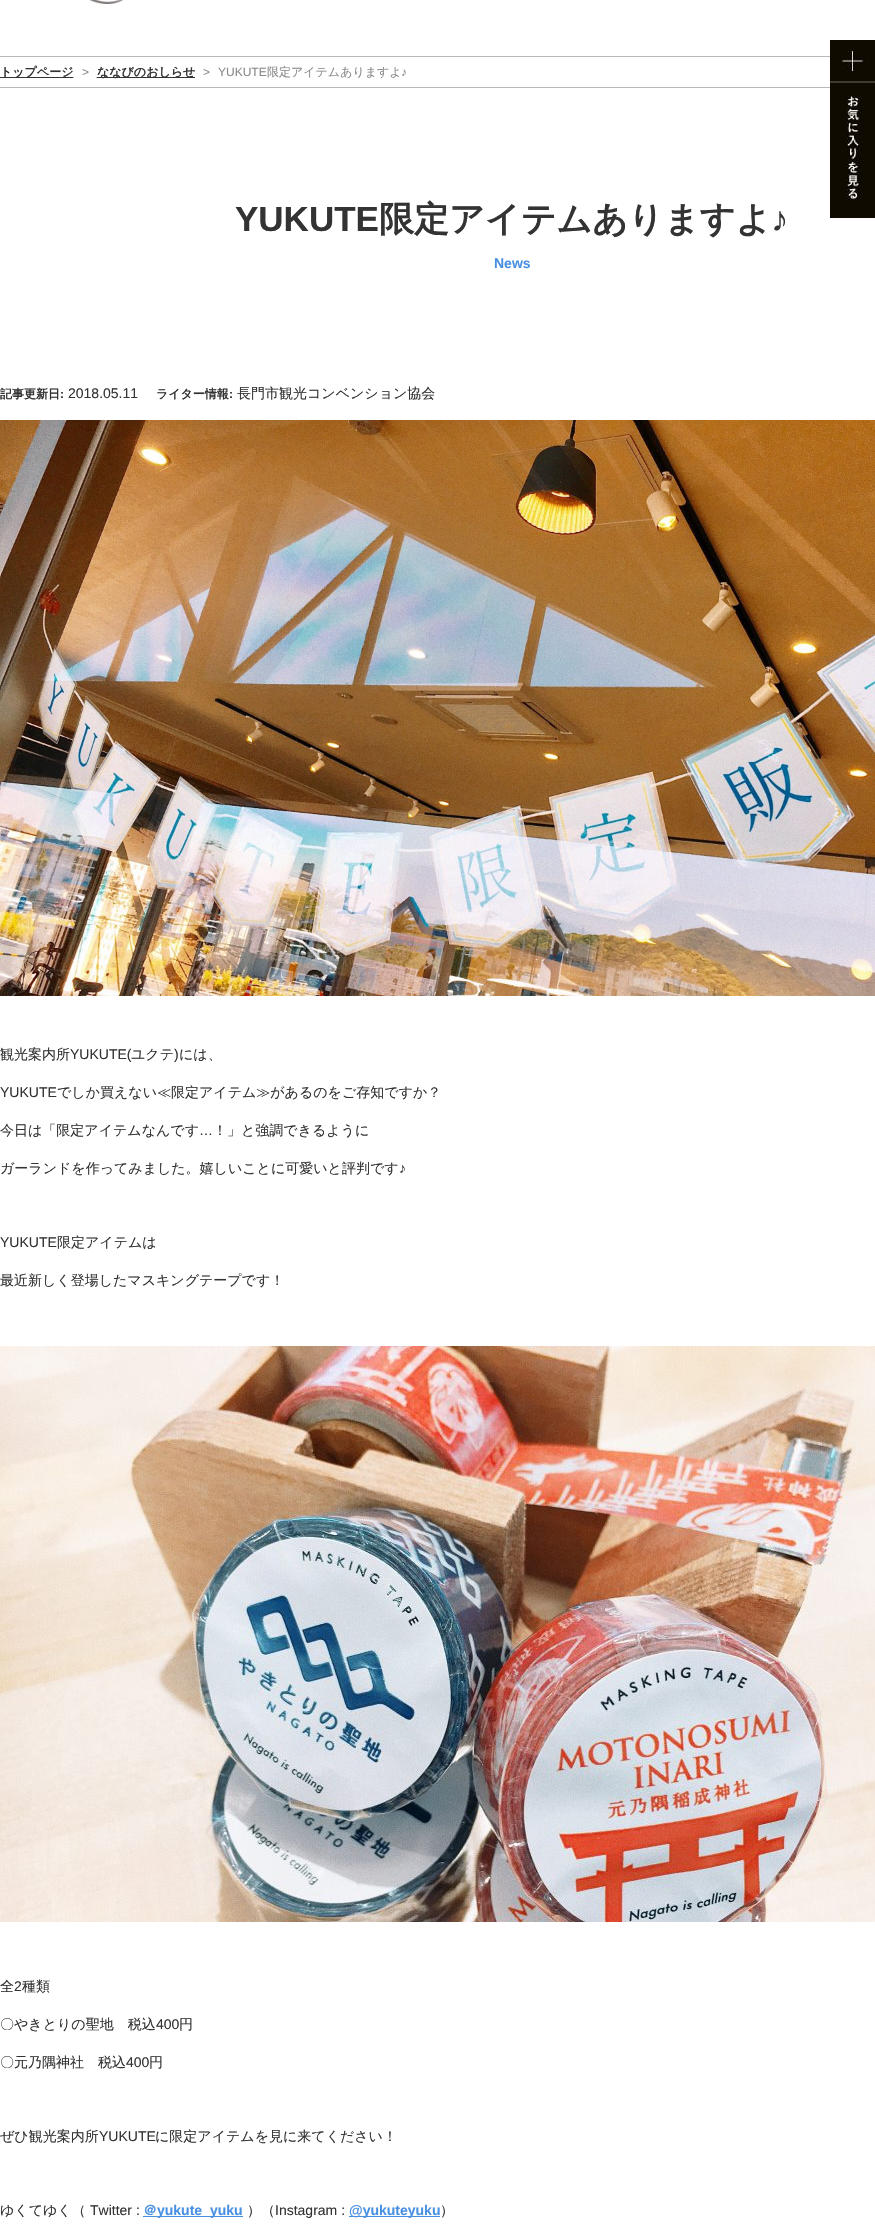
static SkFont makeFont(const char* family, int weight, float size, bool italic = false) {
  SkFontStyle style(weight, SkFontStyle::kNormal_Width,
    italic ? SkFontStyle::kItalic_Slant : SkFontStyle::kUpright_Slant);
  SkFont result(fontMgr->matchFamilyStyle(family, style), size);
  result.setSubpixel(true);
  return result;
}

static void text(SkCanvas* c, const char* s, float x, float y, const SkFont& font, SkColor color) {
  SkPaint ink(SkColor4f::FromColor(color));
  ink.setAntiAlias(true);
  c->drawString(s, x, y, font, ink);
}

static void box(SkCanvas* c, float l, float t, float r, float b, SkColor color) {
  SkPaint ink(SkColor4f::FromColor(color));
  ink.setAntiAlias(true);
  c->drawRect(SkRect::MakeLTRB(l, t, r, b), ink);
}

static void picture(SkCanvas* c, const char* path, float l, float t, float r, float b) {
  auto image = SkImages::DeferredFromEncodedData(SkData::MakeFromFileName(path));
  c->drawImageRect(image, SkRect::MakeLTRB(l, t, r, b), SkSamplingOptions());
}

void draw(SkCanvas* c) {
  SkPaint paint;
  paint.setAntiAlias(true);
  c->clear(0xffffffff);
  picture(c, "img_01.png", 89, 0, 123, 4);
  picture(c, "img_02.png", 830, 40, 875, 218);
  box(c, 0, 56, 830, 57, 0xffb9b9b9);
  box(c, 0, 87, 830, 88, 0xffb9b9b9);
  picture(c, "img_03.png", 0, 77, 74, 78);
  SkFont face1 = makeFont("WenQuanYi Zen Hei", 700, 12);
  text(c, "トップページ", 0, 76, face1, 0xff333333);
  SkFont face2 = makeFont("Liberation Sans", 400, 12);
  text(c, ">", 82, 76, face2, 0xff898989);
  box(c, 97, 77, 195, 78, 0xff333333);
  text(c, "ななびのおしらせ", 97, 76, face1, 0xff333333);
  text(c, ">", 203, 76, face2, 0xff898989);
  text(c, "YUKUTE", 218, 76, face2, 0xff898989);
  SkFont face3 = makeFont("WenQuanYi Zen Hei", 500, 12);
  text(c, "限定アイテムありますよ", 267, 76, face3, 0xff898989);
  text(c, "♪", 401, 76, face2, 0xff898989);
  picture(c, "img_04.png", 96, 77, 97, 78);
  SkFont face4 = makeFont("Liberation Sans", 700, 35);
  text(c, "YUKUTE", 235, 231, face4, 0xff333333);
  SkFont face5 = makeFont("WenQuanYi Zen Hei", 700, 35);
  text(c, "限定アイテムありますよ", 379, 231, face5, 0xff333333);
  text(c, "♪", 771, 231, face4, 0xff333333);
  SkFont face6 = makeFont("Liberation Sans", 700, 14);
  text(c, "News", 494, 268, face6, 0xff4a90e2);
  text(c, "記事更新日", 0, 398, face1, 0xff333333);
  SkFont face7 = makeFont("Liberation Sans", 700, 12);
  text(c, ":", 60, 398, face7, 0xff333333);
  SkFont face8 = makeFont("Liberation Sans", 400, 14);
  text(c, "2018.05.11", 68, 398, face8, 0xff333333);
  text(c, "ライター情報", 156, 398, face1, 0xff333333);
  text(c, ":", 229, 398, face7, 0xff333333);
  SkFont face9 = makeFont("WenQuanYi Zen Hei", 500, 14);
  text(c, "長門市観光コンベンション協会", 237, 398, face9, 0xff333333);
  picture(c, "img_05.png", 0, 420, 875, 996);
  text(c, "観光案内所", 0, 1059, face9, 0xff333333);
  text(c, "YUKUTE(", 70, 1059, face8, 0xff333333);
  text(c, "ユクテ", 131, 1059, face9, 0xff333333);
  text(c, ")", 174, 1059, face8, 0xff333333);
  text(c, "には、", 179, 1059, face9, 0xff333333);
  text(c, "YUKUTE", 0, 1097, face8, 0xff333333);
  text(c, "でしか買えない≪限定アイテム≫があるのをご存知ですか？", 57, 1097, face9, 0xff333333);
  text(c, "今日は「限定アイテムなんです", 0, 1135, face9, 0xff333333);
  text(c, "…", 199, 1135, face8, 0xff333333);
  text(c, "！」と強調できるように", 213, 1135, face9, 0xff333333);
  text(c, "ガーランドを作ってみました。嬉しいことに可愛いと評判です", 0, 1173, face9, 0xff333333);
  text(c, "♪", 399, 1173, face8, 0xff333333);
  text(c, "YUKUTE", 0, 1247, face8, 0xff333333);
  text(c, "限定アイテムは", 57, 1247, face9, 0xff333333);
  text(c, "最近新しく登場したマスキングテープです！", 0, 1285, face9, 0xff333333);
  picture(c, "img_06.png", 0, 1346, 875, 1922);
  text(c, "全", 0, 1991, face9, 0xff333333);
  text(c, "2", 14, 1991, face8, 0xff333333);
  text(c, "種類", 22, 1991, face9, 0xff333333);
  text(c, "〇やきとりの聖地　税込", 0, 2029, face9, 0xff333333);
  text(c, "400", 156, 2029, face8, 0xff333333);
  text(c, "円", 179, 2029, face9, 0xff333333);
  text(c, "〇元乃隅神社　税込", 0, 2067, face9, 0xff333333);
  text(c, "400", 126, 2067, face8, 0xff333333);
  text(c, "円", 149, 2067, face9, 0xff333333);
  text(c, "ぜひ観光案内所", 0, 2141, face9, 0xff333333);
  text(c, "YUKUTE", 99, 2141, face8, 0xff333333);
  text(c, "に限定アイテムを見に来てください！", 155, 2141, face9, 0xff333333);
  text(c, "ゆくてゆく（", 0, 2215, face9, 0xff333333);
  text(c, "Twitter :", 90, 2215, face8, 0xff333333);
  SkFont face10 = makeFont("WenQuanYi Zen Hei", 700, 14);
  text(c, "＠", 143, 2215, face10, 0xff4a90e2);
  box(c, 143, 2216, 243, 2217, 0xff4a90e2);
  text(c, "yukute_yuku", 157, 2215, face6, 0xff4a90e2);
  text(c, "）（", 247, 2215, face9, 0xff333333);
  text(c, "Instagram :", 275, 2215, face8, 0xff333333);
  box(c, 349, 2216, 440, 2217, 0xff4a90e2);
  text(c, "@yukuteyuku", 349, 2215, face6, 0xff4a90e2);
  text(c, "）", 440, 2215, face9, 0xff333333);
}
